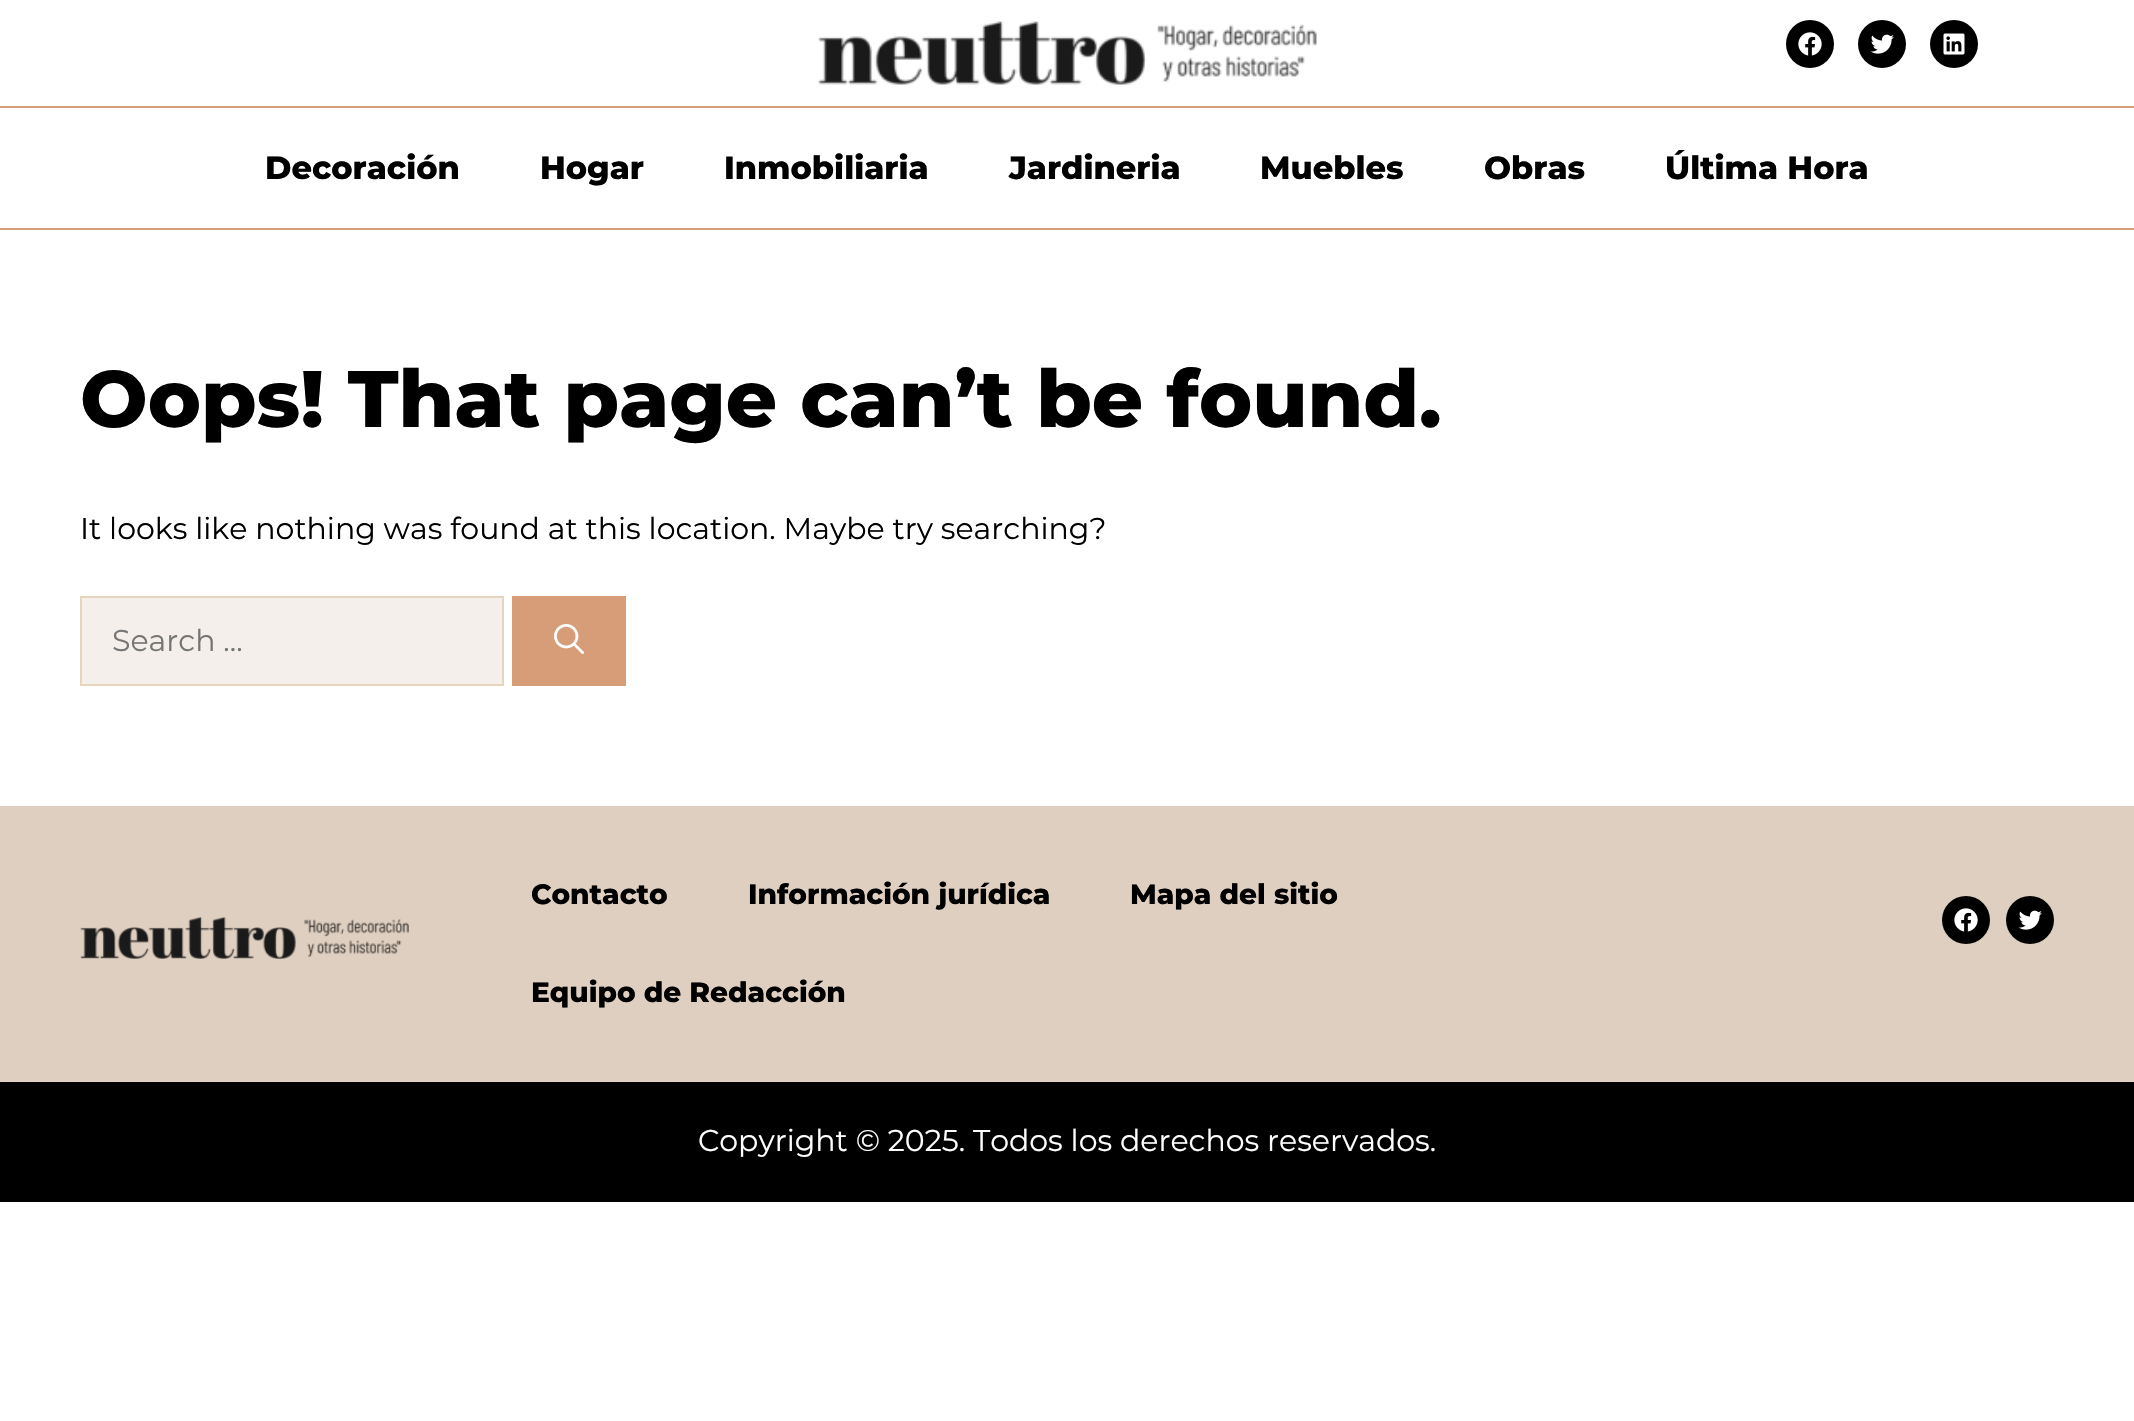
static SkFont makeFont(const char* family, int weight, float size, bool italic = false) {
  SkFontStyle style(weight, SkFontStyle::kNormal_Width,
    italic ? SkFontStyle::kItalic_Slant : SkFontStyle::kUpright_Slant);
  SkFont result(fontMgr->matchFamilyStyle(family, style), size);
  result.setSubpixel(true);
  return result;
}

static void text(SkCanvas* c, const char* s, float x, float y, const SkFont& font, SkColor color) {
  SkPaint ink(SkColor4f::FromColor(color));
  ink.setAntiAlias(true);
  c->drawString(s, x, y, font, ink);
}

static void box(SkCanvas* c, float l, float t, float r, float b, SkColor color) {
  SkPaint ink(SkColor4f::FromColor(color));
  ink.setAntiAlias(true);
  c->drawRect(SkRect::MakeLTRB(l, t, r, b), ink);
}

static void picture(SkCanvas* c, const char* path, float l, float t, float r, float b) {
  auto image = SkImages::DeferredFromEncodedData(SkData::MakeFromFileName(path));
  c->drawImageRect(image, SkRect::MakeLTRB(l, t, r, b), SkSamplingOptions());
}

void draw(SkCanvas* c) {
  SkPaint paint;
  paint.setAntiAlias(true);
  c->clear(0xffffffff);
  picture(c, "img_01.png", 818, 21, 1317, 85);
  paint.setColor(0xff000000);
  c->drawCircle(1810, 44, 24, paint);
  picture(c, "img_02.png", 1798, 32, 1822, 56);
  c->drawCircle(1882, 44, 24, paint);
  picture(c, "img_03.png", 1870, 34, 1894, 54);
  c->drawCircle(1954, 44, 24, paint);
  picture(c, "img_04.png", 1943, 33, 1965, 55);
  box(c, 0, 106, 2134, 108, 0xffd79c78);
  box(c, 0, 228, 2134, 230, 0xffd79c78);
  SkFont face1 = makeFont("Montserrat", 100, 32);
  text(c, "Decoración", 265, 179, face1, 0xff000000);
  text(c, "Hogar", 540, 179, face1, 0xff000000);
  text(c, "Inmobiliaria", 724, 179, face1, 0xff000000);
  text(c, "Jardineria", 1009, 179, face1, 0xff000000);
  text(c, "Muebles", 1260, 179, face1, 0xff000000);
  text(c, "Obras", 1484, 179, face1, 0xff000000);
  text(c, "Última Hora", 1665, 179, face1, 0xff000000);
  SkFont face2 = makeFont("Montserrat", 100, 80);
  text(c, "Oops! That page can’t be found.", 80, 427, face2, 0xff000000);
  SkFont face3 = makeFont("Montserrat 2", 100, 30);
  text(c, "It looks like nothing was found at this location. Maybe try searching?", 80, 539, face3, 0xff000000);
  paint.setColor(0xfff4efea);
  c->drawRect(SkRect::MakeLTRB(81, 597, 503, 685), paint);
  paint.setStyle(SkPaint::kStroke_Style);
  paint.setStrokeWidth(2);
  paint.setColor(0xffe6d4bc);
  c->drawRect(SkRect::MakeLTRB(81, 597, 503, 685), paint);
  text(c, "Search …", 112, 651, face3, 0xff757575);
  box(c, 512, 596, 626, 686, 0xffd79c78);
  picture(c, "img_05.png", 554, 624, 584, 654);
  box(c, 0, 806, 2134, 1082, 0xffdfcfc0);
  picture(c, "img_06.png", 80, 917, 409, 959);
  SkFont face4 = makeFont("Montserrat", 100, 28);
  text(c, "Contacto", 531, 904, face4, 0xff000000);
  text(c, "Información jurídica", 748, 904, face4, 0xff000000);
  text(c, "Mapa del sitio", 1130, 904, face4, 0xff000000);
  text(c, "Equipo de Redacción", 531, 1002, face4, 0xff000000);
  paint.setStyle(SkPaint::kFill_Style);
  paint.setColor(0xff000000);
  c->drawCircle(1966, 920, 24, paint);
  picture(c, "img_02.png", 1954, 908, 1978, 932);
  c->drawCircle(2030, 920, 24, paint);
  picture(c, "img_03.png", 2018, 910, 2042, 930);
  box(c, 0, 1082, 2134, 1202, 0xff000000);
  text(c, "Copyright © 2025. Todos los derechos reservados.", 698, 1151, face3, 0xffffffff);
}
